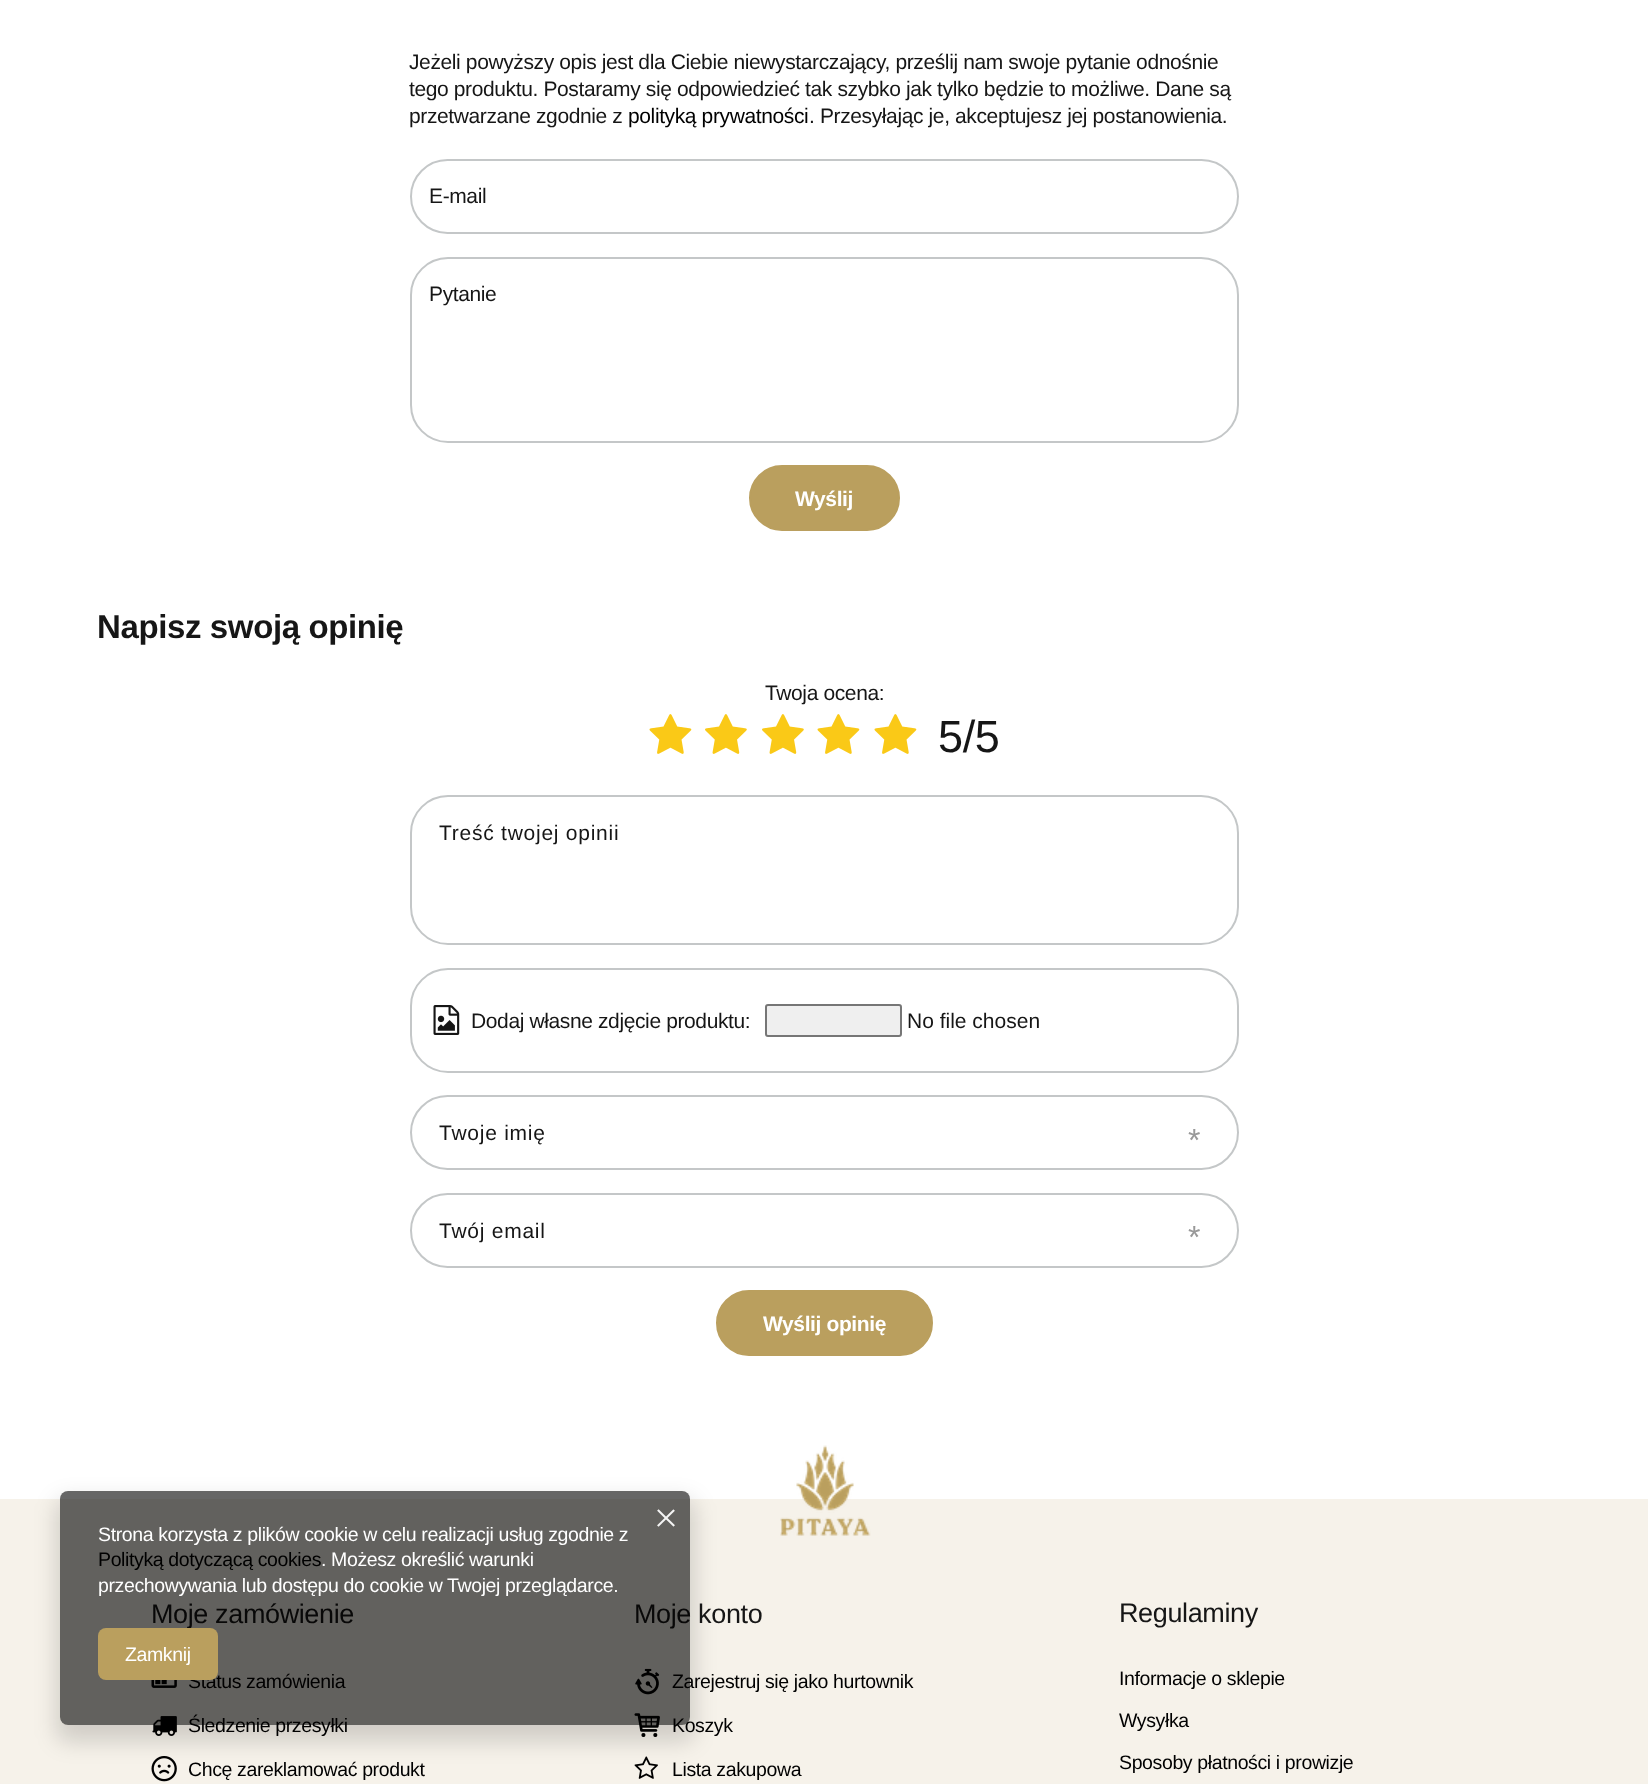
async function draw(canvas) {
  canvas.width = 1648;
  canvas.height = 1784;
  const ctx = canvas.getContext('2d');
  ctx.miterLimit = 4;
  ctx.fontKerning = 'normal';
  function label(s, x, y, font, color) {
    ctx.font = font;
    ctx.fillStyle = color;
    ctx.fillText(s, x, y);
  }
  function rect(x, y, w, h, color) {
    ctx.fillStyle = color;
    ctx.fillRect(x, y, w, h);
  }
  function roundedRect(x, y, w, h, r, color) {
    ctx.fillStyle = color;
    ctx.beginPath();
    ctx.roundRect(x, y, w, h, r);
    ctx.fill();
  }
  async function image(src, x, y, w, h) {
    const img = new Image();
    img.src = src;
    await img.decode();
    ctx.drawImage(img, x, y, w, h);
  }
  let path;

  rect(0, 0, 1648, 1784, '#fff');
  ctx.letterSpacing = '-0.38px';
  label('Jeżeli powyższy opis jest dla Ciebie niewystarczający, prześlij nam swoje pytanie odnośnie', 409, 69, '21px Liberation Sans', '#161616');
  label('tego produktu. Postaramy się odpowiedzieć tak szybko jak tylko będzie to możliwe. Dane są', 409, 96, '21px Liberation Sans', '#161616');
  label('przetwarzane zgodnie z', 409, 123, '21px Liberation Sans', '#161616');
  label('polityką prywatności', 628, 123, '21px Liberation Sans', '#000');
  label('. Przesyłając je, akceptujesz jej postanowienia.', 809, 123, '21px Liberation Sans', '#161616');
  ctx.beginPath();
  ctx.roundRect(411, 160, 827, 73, 36.5);
  ctx.strokeStyle = '#c4c7c8';
  ctx.lineWidth = 2;
  ctx.stroke();
  label('E-mail', 429, 203, '21px Liberation Sans', '#161616');
  ctx.beginPath();
  ctx.roundRect(411, 258, 827, 184, 37);
  ctx.stroke();
  label('Pytanie', 429, 301, '21px Liberation Sans', '#161616');
  ctx.fillStyle = '#ba9f5e';
  ctx.beginPath();
  ctx.roundRect(750, 466, 149, 64, 32);
  ctx.fill();
  ctx.strokeStyle = '#ba9f5e';
  ctx.stroke();
  label('Wyślij', 795, 506, 'bold 21px Liberation Sans', '#fff');
  label('Napisz swoją opinię', 97, 638, 'bold 33px Liberation Sans', '#161616');
  label('Twoja ocena:', 765, 700, '21px Liberation Sans', '#161616');
  await image('assets/img1.png', 649, 714, 43, 40);
  await image('assets/img2.png', 705, 714, 42, 40);
  await image('assets/img2.png', 762, 714, 42, 40);
  await image('assets/img1.png', 817, 714, 43, 40);
  await image('assets/img1.png', 874, 714, 43, 40);
  label('5/5', 938, 752, '45px Liberation Sans', '#161616');
  ctx.beginPath();
  ctx.roundRect(411, 796, 827, 148, 37);
  ctx.strokeStyle = '#c4c7c8';
  ctx.stroke();
  ctx.letterSpacing = '0.75px';
  label('Treść twojej opinii', 439, 840, '21px Liberation Sans', '#161616');
  ctx.beginPath();
  ctx.roundRect(411, 969, 827, 103, 37);
  ctx.stroke();
  await image('assets/img3.png', 433, 1005, 27, 30);
  ctx.letterSpacing = '-0.38px';
  label('Dodaj własne zdjęcie produktu:', 471, 1028, '21px Liberation Sans', '#161616');
  ctx.fillStyle = '#efefef';
  ctx.beginPath();
  ctx.roundRect(766, 1005, 135, 31, 2);
  ctx.fill();
  ctx.strokeStyle = '#767676';
  ctx.stroke();
  ctx.letterSpacing = '0px';
  label('No file chosen', 907, 1028, '21px Liberation Sans', '#161616');
  ctx.beginPath();
  ctx.roundRect(411, 1096, 827, 73, 36.5);
  ctx.strokeStyle = '#c4c7c8';
  ctx.stroke();
  ctx.letterSpacing = '0.75px';
  label('Twoje imię', 439, 1140, '21px Liberation Sans', '#161616');
  ctx.letterSpacing = '-0.38px';
  label('*', 1188, 1151, '32px Liberation Sans', '#999');
  ctx.beginPath();
  ctx.roundRect(411, 1194, 827, 73, 36.5);
  ctx.stroke();
  ctx.letterSpacing = '0.75px';
  label('Twój email', 439, 1238, '21px Liberation Sans', '#161616');
  ctx.letterSpacing = '-0.38px';
  label('*', 1188, 1248, '32px Liberation Sans', '#999');
  ctx.fillStyle = '#ba9f5e';
  ctx.beginPath();
  ctx.roundRect(717, 1291, 215, 64, 32);
  ctx.fill();
  ctx.strokeStyle = '#ba9f5e';
  ctx.stroke();
  label('Wyślij opinię', 763, 1331, 'bold 21px Liberation Sans', '#fff');
  rect(0, 1499, 1648, 285, '#f6f2ea');
  await image('assets/img6.png', 151, 1680, 26, 8);
  await image('assets/img7.png', 152, 1716, 25, 20);
  await image('assets/img8.png', 151, 1756, 26, 26);
  await image('assets/img9.png', 635, 1668, 25, 27);
  await image('assets/img10.png', 634, 1713, 26, 24);
  await image('assets/img11.png', 634, 1756, 24, 23);
  ctx.save();
  path = new Path2D('M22 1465H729V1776H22ZM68 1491H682C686.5 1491 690 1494.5 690 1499V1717C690 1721.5 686.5 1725 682 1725H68C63.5 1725 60 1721.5 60 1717V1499C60 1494.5 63.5 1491 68 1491Z');
  ctx.clip(path, 'evenodd');
  ctx.fillStyle = '#00000026';
  ctx.filter = 'blur(11px)';
  ctx.beginPath();
  ctx.roundRect(56, 1499, 639, 243, 12);
  ctx.fill();
  ctx.filter = 'none';
  ctx.restore();
  label('Moje zamówienie', 151, 1623, '27px Liberation Sans', '#161616');
  label('Status zamówienia', 188, 1688, '19.5px Liberation Sans', '#000');
  label('Śledzenie przesyłki', 188, 1732, '19.5px Liberation Sans', '#000');
  label('Moje konto', 634, 1623, '27px Liberation Sans', '#161616');
  label('Zarejestruj się jako hurtownik', 672, 1688, '19.5px Liberation Sans', '#000');
  label('Koszyk', 672, 1732, '19.5px Liberation Sans', '#000');
  roundedRect(60, 1491, 630, 234, 8, '#00000099');
  await image('assets/img4.png', 657, 1509, 18, 18);
  label('Strona korzysta z plików cookie w celu realizacji usług zgodnie z', 98, 1541, '19.5px Liberation Sans', '#fff');
  label('Polityką dotyczącą cookies', 98, 1566, '19.5px Liberation Sans', '#000');
  label('. Możesz określić warunki', 321, 1566, '19.5px Liberation Sans', '#fff');
  label('przechowywania lub dostępu do cookie w Twojej przeglądarce.', 98, 1592, '19.5px Liberation Sans', '#fff');
  roundedRect(98, 1628, 120, 52, 8, '#ba9f5e');
  label('Zamknij', 125, 1661, '19.5px Liberation Sans', '#fff');
  await image('assets/img5.png', 780, 1445, 91, 91);
  label('Chcę zareklamować produkt', 188, 1776, '19.5px Liberation Sans', '#000');
  label('Lista zakupowa', 672, 1776, '19.5px Liberation Sans', '#000');
  label('Regulaminy', 1119, 1622, '27px Liberation Sans', '#161616');
  label('Informacje o sklepie', 1119, 1685, '19.5px Liberation Sans', '#000');
  label('Wysyłka', 1119, 1727, '19.5px Liberation Sans', '#000');
  label('Sposoby płatności i prowizje', 1119, 1769, '19.5px Liberation Sans', '#000');
}

draw(document.querySelector('canvas'));
